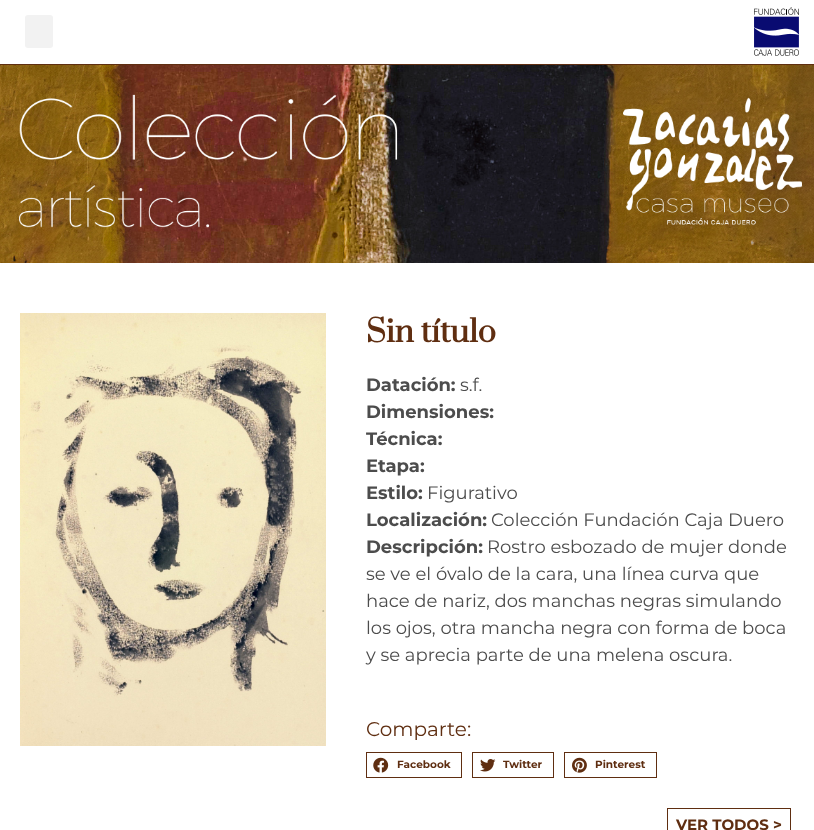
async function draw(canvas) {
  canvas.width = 814;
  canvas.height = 830;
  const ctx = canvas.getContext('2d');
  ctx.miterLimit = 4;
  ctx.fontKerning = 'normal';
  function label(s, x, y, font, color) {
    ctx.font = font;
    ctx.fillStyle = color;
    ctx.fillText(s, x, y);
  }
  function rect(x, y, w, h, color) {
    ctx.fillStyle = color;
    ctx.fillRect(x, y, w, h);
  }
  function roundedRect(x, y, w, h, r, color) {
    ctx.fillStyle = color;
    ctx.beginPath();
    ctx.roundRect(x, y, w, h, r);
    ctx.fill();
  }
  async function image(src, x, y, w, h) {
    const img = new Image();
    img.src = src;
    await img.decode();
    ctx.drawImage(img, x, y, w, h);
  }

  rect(0, 0, 814, 830, '#fff');
  rect(0, 64, 814, 1, '#5f2e11');
  roundedRect(25, 15, 28, 33, 3, '#f2f2f2');
  await image('assets/img1.png', 754, 7, 45, 49);
  await image('assets/img2.png', 0, 65, 814, 198);
  await image('assets/img3.png', 19, 94, 783, 134);
  await image('assets/img4.png', 20, 313, 306, 433);
  label('Sin título', 366, 342, 'bold 30px Prata', '#5f2e11');
  label('Datación:', 366, 391, 'bold 18px Montserrat', '#4c4c4c');
  label('s.f.', 460, 391, '18px Montserrat', '#4c4c4c');
  label('Dimensiones:', 366, 418, 'bold 18px Montserrat', '#4c4c4c');
  label('Técnica:', 366, 445, 'bold 18px Montserrat', '#4c4c4c');
  label('Etapa:', 366, 472, 'bold 18px Montserrat', '#4c4c4c');
  label('Estilo:', 366, 499, 'bold 18px Montserrat', '#4c4c4c');
  label('Figurativo', 427, 499, '18px Montserrat', '#4c4c4c');
  label('Localización:', 366, 526, 'bold 18px Montserrat', '#4c4c4c');
  label('Colección Fundación Caja Duero', 491, 526, '18px Montserrat', '#4c4c4c');
  label('Descripción:', 366, 553, 'bold 18px Montserrat', '#4c4c4c');
  label('Rostro esbozado de mujer donde', 487, 553, '18px Montserrat', '#4c4c4c');
  label('se ve el óvalo de la cara, una línea curva que', 366, 580, '18px Montserrat', '#4c4c4c');
  label('hace de nariz, dos manchas negras simulando', 366, 607, '18px Montserrat', '#4c4c4c');
  label('los ojos, otra mancha negra con forma de boca', 366, 634, '18px Montserrat', '#4c4c4c');
  label('y se aprecia parte de una melena oscura.', 366, 661, '18px Montserrat', '#4c4c4c');
  label('Comparte:', 366, 736, '20px Montserrat', '#5f2e11');
  ctx.strokeStyle = '#5f2e11';
  ctx.strokeRect(366.5, 752.5, 95, 25);
  await image('assets/img5.png', 373, 757, 16, 16);
  label('Facebook', 397, 768, 'bold 10.5px Montserrat', '#5f2e11');
  ctx.strokeRect(472.5, 752.5, 81, 25);
  await image('assets/img6.png', 480, 759, 16, 13);
  label('Twitter', 503, 768, 'bold 10.5px Montserrat', '#5f2e11');
  ctx.strokeRect(564.5, 752.5, 92, 25);
  await image('assets/img7.png', 572, 757, 15, 16);
  label('Pinterest', 595, 768, 'bold 10.5px Montserrat', '#5f2e11');
  ctx.strokeRect(667.5, 808.5, 123, 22);
  label('VER TODOS >', 676, 830, 'bold 15px Montserrat', '#5f2e11');
}

draw(document.querySelector('canvas'));
